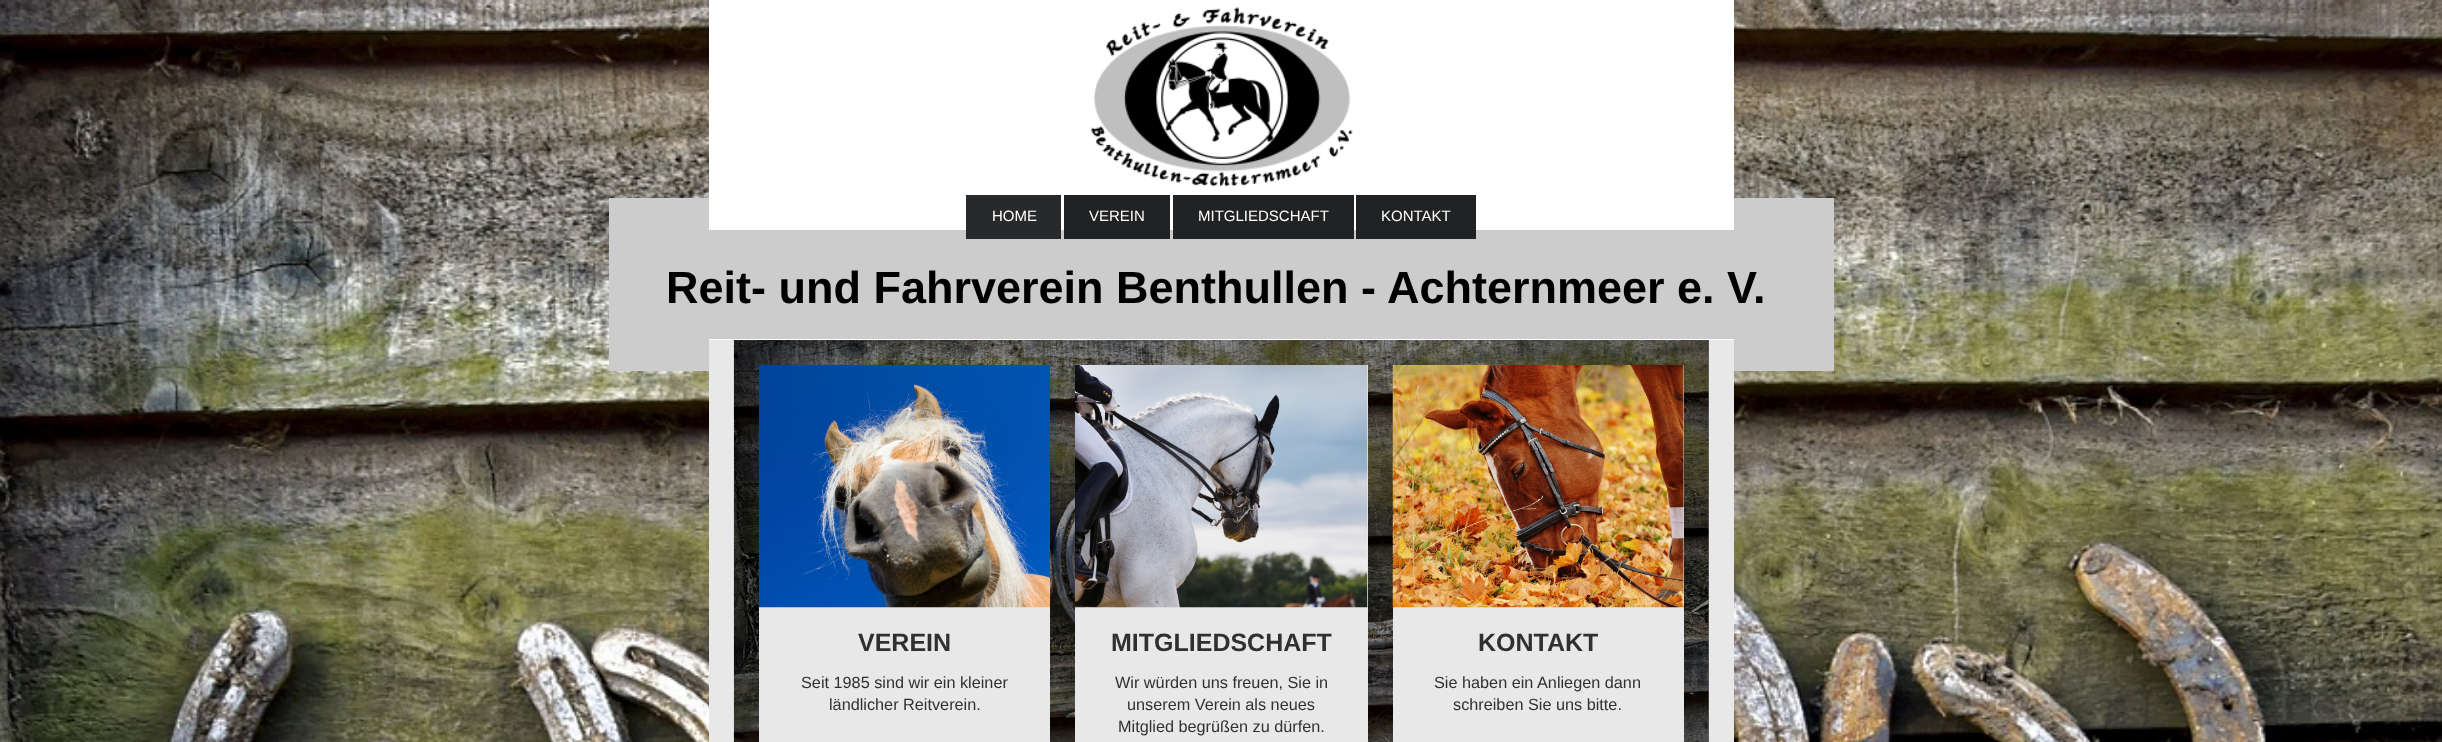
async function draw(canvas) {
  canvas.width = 2442;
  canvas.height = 742;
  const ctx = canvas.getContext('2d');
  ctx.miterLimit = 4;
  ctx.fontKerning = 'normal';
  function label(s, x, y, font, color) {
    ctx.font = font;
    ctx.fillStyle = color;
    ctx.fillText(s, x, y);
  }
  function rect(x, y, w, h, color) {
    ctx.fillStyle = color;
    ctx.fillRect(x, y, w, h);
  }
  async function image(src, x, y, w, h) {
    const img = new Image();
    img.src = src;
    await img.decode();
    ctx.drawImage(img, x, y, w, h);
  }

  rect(0, 0, 2442, 742, '#fff');
  await image('assets/img1.png', 0, 0, 2442, 742);
  rect(609, 198, 1225, 173, '#ccc');
  rect(709, 0, 1025, 230, '#fff');
  await image('assets/img2.png', 1091, 7, 262, 180);
  rect(966, 195, 95, 44, '#28292b');
  label('HOME', 992, 221, '15px Liberation Sans', '#fff');
  rect(1064, 195, 106, 44, '#212224');
  label('VEREIN', 1089, 221, '15px Liberation Sans', '#fff');
  rect(1173, 195, 181, 44, '#212224');
  label('MITGLIEDSCHAFT', 1198, 221, '15px Liberation Sans', '#fff');
  rect(1356, 195, 120, 44, '#212224');
  label('KONTAKT', 1381, 221, '15px Liberation Sans', '#fff');
  label('Reit- und Fahrverein Benthullen - Achternmeer e. V.', 666, 303, 'bold 45px Liberation Sans', '#000');
  rect(709, 339, 1025, 1, '#fff');
  rect(709, 340, 1025, 402, '#e8e8e8');
  await image('assets/img3.png', 733, 340, 976, 402);
  rect(734, 340, 975, 402, '#00000073');
  rect(759, 607, 291, 135, '#e8e8e8');
  await image('assets/img4.png', 758, 365, 292, 243);
  label('VEREIN', 858, 651, 'bold 25px Liberation Sans', '#303030');
  label('Seit 1985 sind wir ein kleiner', 801, 688, '16.25px Liberation Sans', '#303030');
  label('ländlicher Reitverein.', 829, 710, '16.25px Liberation Sans', '#303030');
  rect(1075, 365, 293, 377, '#e8e8e8');
  await image('assets/img5.png', 1075, 365, 293, 243);
  label('MITGLIEDSCHAFT', 1111, 651, 'bold 25px Liberation Sans', '#303030');
  label('Wir würden uns freuen, Sie in', 1115, 688, '16.25px Liberation Sans', '#303030');
  label('unserem Verein als neues', 1127, 710, '16.25px Liberation Sans', '#303030');
  label('Mitglied begrüßen zu dürfen.', 1118, 732, '16.25px Liberation Sans', '#303030');
  rect(1393, 365, 291, 377, '#e8e8e8');
  await image('assets/img6.png', 1392, 365, 292, 243);
  label('KONTAKT', 1478, 651, 'bold 25px Liberation Sans', '#303030');
  label('Sie haben ein Anliegen dann', 1434, 688, '16.25px Liberation Sans', '#303030');
  label('schreiben Sie uns bitte.', 1453, 710, '16.25px Liberation Sans', '#303030');
}

draw(document.querySelector('canvas'));
